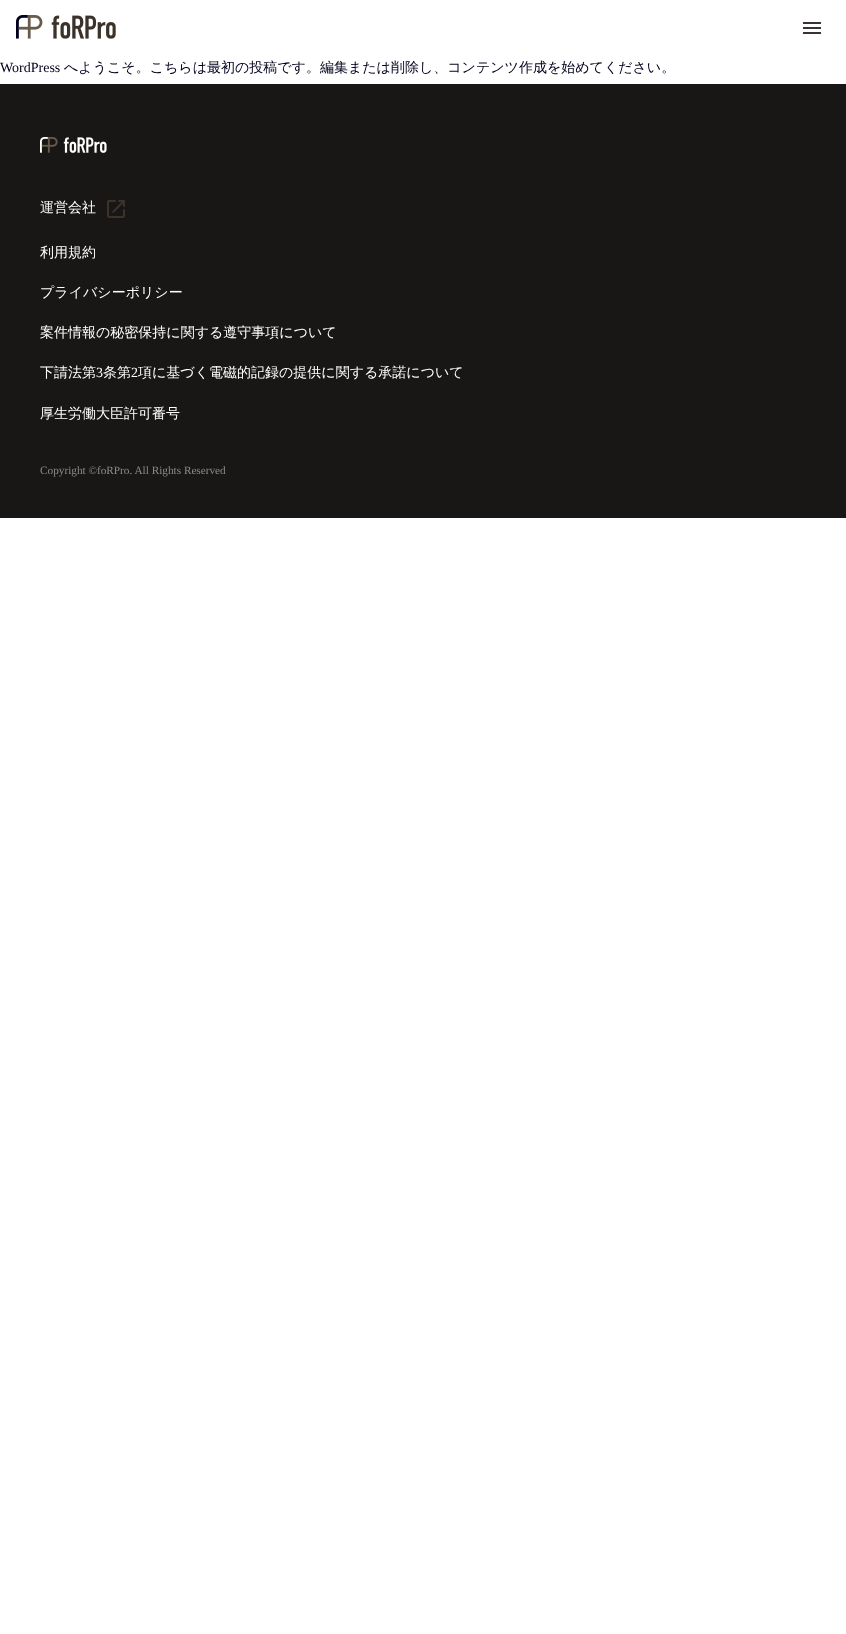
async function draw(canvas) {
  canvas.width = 846;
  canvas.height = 1634;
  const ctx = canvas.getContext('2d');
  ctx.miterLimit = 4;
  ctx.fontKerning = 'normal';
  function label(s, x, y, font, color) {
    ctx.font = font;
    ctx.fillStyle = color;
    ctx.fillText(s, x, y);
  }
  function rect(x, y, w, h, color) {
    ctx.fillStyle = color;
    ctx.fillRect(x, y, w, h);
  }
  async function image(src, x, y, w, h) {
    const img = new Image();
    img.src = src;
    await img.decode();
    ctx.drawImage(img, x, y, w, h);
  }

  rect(0, 0, 846, 1634, '#fff');
  await image('assets/img1.png', 16, 15, 100, 24);
  rect(803, 22, 18, 2, '#3b3239');
  rect(803, 27, 18, 2, '#3b3239');
  rect(803, 32, 18, 2, '#3b3239');
  label('WordPress', 0, 72, '14px Liberation Serif', '#00011d');
  label('へようこそ。こちらは最初の投稿です。編集または削除し、コンテンツ作成を始めてください。', 64, 72, '500 14px WenQuanYi Zen Hei', '#00011d');
  rect(0, 84, 846, 434, '#191715');
  await image('assets/img2.png', 40, 137, 67, 16);
  label('運営会社', 40, 212, '500 14px WenQuanYi Zen Hei', '#fff');
  await image('assets/img3.png', 107, 200, 18, 18);
  label('利用規約', 40, 257, '500 14px WenQuanYi Zen Hei', '#fff');
  label('プライバシーポリシー', 40, 297, '500 14px WenQuanYi Zen Hei', '#fff');
  label('案件情報の秘密保持に関する遵守事項について', 40, 337, '500 14px WenQuanYi Zen Hei', '#fff');
  label('下請法第', 40, 377, '500 14px WenQuanYi Zen Hei', '#fff');
  label('3', 96, 377, '14px Liberation Serif', '#fff');
  label('条第', 103, 377, '500 14px WenQuanYi Zen Hei', '#fff');
  label('2', 131, 377, '14px Liberation Serif', '#fff');
  label('項に基づく電磁的記録の提供に関する承諾について', 138, 377, '500 14px WenQuanYi Zen Hei', '#fff');
  label('厚生労働大臣許可番号', 40, 418, '500 14px WenQuanYi Zen Hei', '#fff');
  label('Copyright ©foRPro. All Rights Reserved', 40, 474, '11.25px Liberation Serif', '#8c8b8a');
}

draw(document.querySelector('canvas'));
